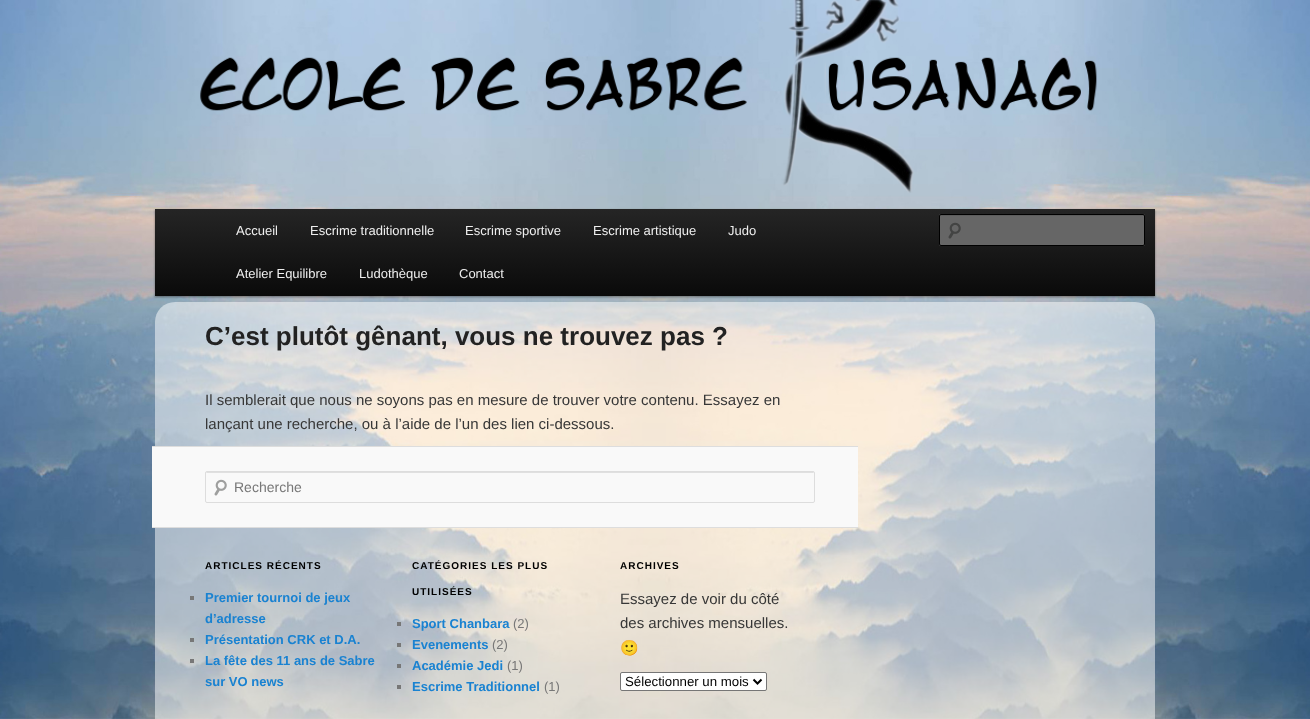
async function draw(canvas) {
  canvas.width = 1310;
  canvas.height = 719;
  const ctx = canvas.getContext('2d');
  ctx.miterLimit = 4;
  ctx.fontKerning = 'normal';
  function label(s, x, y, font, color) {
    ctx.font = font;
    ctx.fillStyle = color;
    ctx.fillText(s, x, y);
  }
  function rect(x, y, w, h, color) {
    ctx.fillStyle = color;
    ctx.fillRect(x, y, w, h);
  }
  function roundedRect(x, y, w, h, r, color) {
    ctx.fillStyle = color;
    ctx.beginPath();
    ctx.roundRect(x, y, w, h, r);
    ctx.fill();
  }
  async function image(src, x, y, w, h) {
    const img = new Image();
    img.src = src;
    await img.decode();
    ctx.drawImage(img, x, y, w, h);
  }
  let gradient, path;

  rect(0, 0, 1310, 719, '#fff');
  await image('assets/img1.png', 0, 0, 1310, 719);
  await image('assets/img2.png', 200, 0, 897, 193);
  ctx.fillStyle = '#00000066';
  ctx.filter = 'blur(1px)';
  ctx.beginPath();
  ctx.rect(155, 210, 1000, 87);
  ctx.fill();
  ctx.filter = 'none';
  gradient = ctx.createLinearGradient(655, 209, 655, 296);
  gradient.addColorStop(0, '#252525');
  gradient.addColorStop(1, '#0a0a0a');
  ctx.fillStyle = gradient;
  ctx.fillRect(155, 209, 1000, 87);
  label('Accueil', 236, 235, '13px Liberation Sans', '#eee');
  label('Escrime traditionnelle', 310, 235, '13px Liberation Sans', '#eee');
  label('Escrime sportive', 465, 235, '13px Liberation Sans', '#eee');
  label('Escrime artistique', 593, 235, '13px Liberation Sans', '#eee');
  label('Judo', 728, 235, '13px Liberation Sans', '#eee');
  label('Atelier Equilibre', 236, 278, '13px Liberation Sans', '#eee');
  label('Ludothèque', 359, 278, '13px Liberation Sans', '#eee');
  label('Contact', 459, 278, '13px Liberation Sans', '#eee');
  roundedRect(939, 214, 206, 32, 2, '#666');
  await image('assets/img3.png', 948, 222, 13, 17);
  ctx.fillStyle = '#5c5c5c';
  path = new Path2D('M941 216H1144V217V215H1143H941C940 215 940 216 940 217C940 216 940 216 941 216Z');
  ctx.fill(path);
  ctx.beginPath();
  ctx.roundRect(939.5, 214.5, 205, 31, 1.5);
  ctx.strokeStyle = '#000';
  ctx.stroke();
  roundedRect(155, 302, 1000, 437, 20, '#ffffff80');
  label('C’est plutôt gênant, vous ne trouvez pas ?', 205, 345, 'bold 26px Liberation Sans', '#222');
  label('Il semblerait que nous ne soyons pas en mesure de trouver votre contenu. Essayez en', 205, 405, '15px Liberation Sans', '#373737');
  label('lançant une recherche, ou à l’aide de l’un des lien ci-dessous.', 205, 429, '15px Liberation Sans', '#373737');
  rect(152, 447, 706, 80, '#f9f9f9');
  rect(152, 446, 706, 1, '#ddd');
  rect(152, 527, 706, 1, '#ddd');
  await image('assets/img4.png', 214, 479, 13, 17);
  ctx.fillStyle = '#e0e0e0';
  path = new Path2D('M207 472L206 473H814L813 472Z');
  ctx.fill(path);
  ctx.beginPath();
  ctx.roundRect(205.5, 471.5, 609, 31, 1.5);
  ctx.strokeStyle = '#ddd';
  ctx.stroke();
  label('Recherche', 234, 492, '14px Liberation Sans', '#777');
  ctx.letterSpacing = '1px';
  label('ARTICLES RÉCENTS', 205, 569, 'bold 10px Liberation Sans', '#000');
  rect(190, 596, 4, 4, '#777');
  ctx.letterSpacing = '0px';
  label('Premier tournoi de jeux', 205, 602, 'bold 13px Liberation Sans', '#1982d1');
  label('d’adresse', 205, 623, 'bold 13px Liberation Sans', '#1982d1');
  rect(190, 638, 4, 4, '#777');
  label('Présentation CRK et D.A.', 205, 644, 'bold 13px Liberation Sans', '#1982d1');
  rect(190, 659, 4, 4, '#777');
  label('La fête des 11 ans de Sabre', 205, 665, 'bold 13px Liberation Sans', '#1982d1');
  label('sur VO news', 205, 686, 'bold 13px Liberation Sans', '#1982d1');
  ctx.letterSpacing = '1px';
  label('CATÉGORIES LES PLUS', 412, 569, 'bold 10px Liberation Sans', '#000');
  label('UTILISÉES', 412, 595, 'bold 10px Liberation Sans', '#000');
  rect(397, 622, 4, 4, '#777');
  ctx.letterSpacing = '0px';
  label('Sport Chanbara', 412, 628, 'bold 13px Liberation Sans', '#1982d1');
  label('(2)', 513, 628, '13px Liberation Sans', '#777');
  rect(397, 643, 4, 4, '#777');
  label('Evenements', 412, 649, 'bold 13px Liberation Sans', '#1982d1');
  label('(2)', 492, 649, '13px Liberation Sans', '#777');
  rect(397, 664, 4, 4, '#777');
  label('Académie Jedi', 412, 670, 'bold 13px Liberation Sans', '#1982d1');
  label('(1)', 507, 670, '13px Liberation Sans', '#777');
  rect(397, 685, 4, 4, '#777');
  label('Escrime Traditionnel', 412, 691, 'bold 13px Liberation Sans', '#1982d1');
  label('(1)', 544, 691, '13px Liberation Sans', '#777');
  ctx.letterSpacing = '1px';
  label('ARCHIVES', 620, 569, 'bold 10px Liberation Sans', '#000');
  ctx.letterSpacing = '0px';
  label('Essayez de voir du côté', 620, 604, '15px Liberation Sans', '#373737');
  label('des archives mensuelles.', 620, 628, '15px Liberation Sans', '#373737');
  label('🙂', 620, 653, '15px Noto Color Emoji', '#373737');
  ctx.fillStyle = '#fff';
  ctx.beginPath();
  ctx.roundRect(620.5, 672.5, 146, 18, 1.5);
  ctx.fill();
  ctx.strokeStyle = '#767676';
  ctx.stroke();
  path = new Path2D('M753.5 679.5L757.5 683.5L761.5 679.5');
  ctx.strokeStyle = '#000';
  ctx.lineWidth = 2;
  ctx.stroke(path);
  label('Sélectionner un mois', 625, 686, '13.25px Liberation Sans', '#000');
}

draw(document.querySelector('canvas'));
